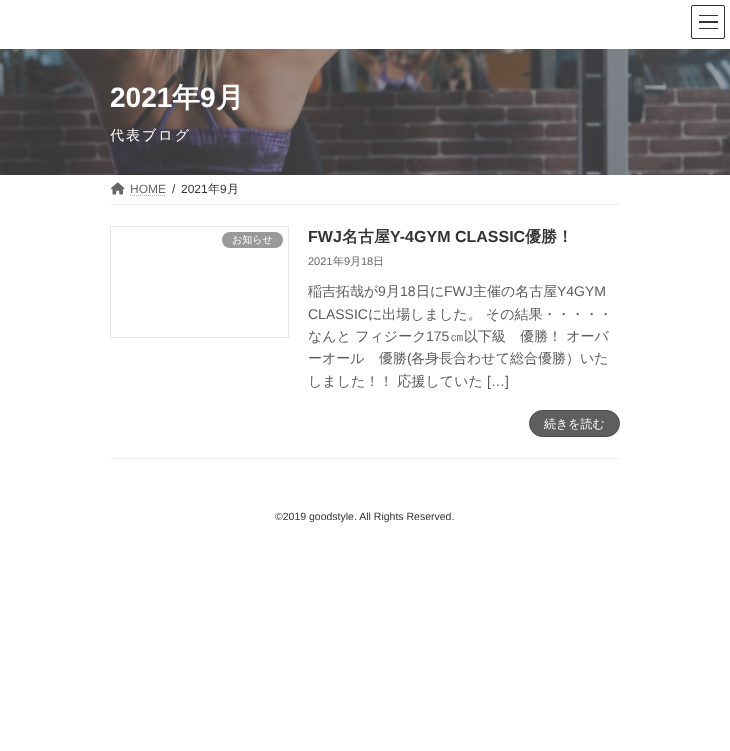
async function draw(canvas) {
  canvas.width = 730;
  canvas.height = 751;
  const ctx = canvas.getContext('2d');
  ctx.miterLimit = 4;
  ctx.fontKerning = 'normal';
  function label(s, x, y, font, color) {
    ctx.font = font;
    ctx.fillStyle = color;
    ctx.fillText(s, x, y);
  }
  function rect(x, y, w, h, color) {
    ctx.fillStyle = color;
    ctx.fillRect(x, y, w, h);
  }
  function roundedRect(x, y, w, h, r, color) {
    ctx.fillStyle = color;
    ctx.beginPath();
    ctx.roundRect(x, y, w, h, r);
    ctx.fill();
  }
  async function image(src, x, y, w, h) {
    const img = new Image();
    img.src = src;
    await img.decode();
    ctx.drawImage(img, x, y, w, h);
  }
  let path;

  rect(0, 0, 730, 751, '#fff');
  rect(699, 15, 19, 1, '#333');
  rect(699, 21, 19, 2, '#333');
  rect(699, 28, 19, 1, '#333');
  ctx.beginPath();
  ctx.roundRect(691.5, 5.5, 33, 33, 1.5);
  ctx.strokeStyle = '#333';
  ctx.stroke();
  await image('assets/img1.png', 0, 49, 730, 126);
  label('2021', 110, 107, 'bold 28px Liberation Sans', '#fff');
  label('年', 172, 107, 'bold 28px WenQuanYi Zen Hei', '#fff');
  label('9', 200, 107, 'bold 28px Liberation Sans', '#fff');
  label('月', 216, 107, 'bold 28px WenQuanYi Zen Hei', '#fff');
  ctx.letterSpacing = '2px';
  label('代表ブログ', 110, 140, '500 14px WenQuanYi Zen Hei', '#fff');
  await image('assets/img2.png', 111, 182, 14, 13);
  ctx.letterSpacing = '0px';
  label('HOME', 130, 193, '12px Liberation Sans', '#666');
  path = new Path2D('M130 195.5H166');
  ctx.strokeStyle = '#b3b3b3';
  ctx.setLineDash([1, 1]);
  ctx.stroke(path);
  label('/', 172, 193, '12px Liberation Sans', '#333');
  label('2021', 181, 193, '12px Liberation Sans', '#333');
  label('年', 208, 193, '500 12px WenQuanYi Zen Hei', '#333');
  label('9', 220, 193, '12px Liberation Sans', '#333');
  label('月', 227, 193, '500 12px WenQuanYi Zen Hei', '#333');
  rect(110, 204, 510, 1, '#f0f0f0');
  rect(110, 458, 510, 1, '#f0f0f0');
  ctx.strokeStyle = '#e5e5e5';
  ctx.setLineDash([]);
  ctx.strokeRect(110.5, 226.5, 178, 111);
  roundedRect(222, 232, 61, 16, 8, '#999');
  label('お知らせ', 232, 243, '500 10px WenQuanYi Zen Hei', '#fff');
  label('FWJ', 308, 242, 'bold 16px Liberation Sans', '#333');
  label('名古屋', 342, 242, 'bold 16px WenQuanYi Zen Hei', '#333');
  label('Y-4GYM CLASSIC', 390, 242, 'bold 16px Liberation Sans', '#333');
  label('優勝！', 525, 242, 'bold 16px WenQuanYi Zen Hei', '#333');
  label('2021', 308, 265, '11px Liberation Sans', '#666');
  label('年', 333, 265, '500 11px WenQuanYi Zen Hei', '#666');
  label('9', 344, 265, '11px Liberation Sans', '#666');
  label('月', 350, 265, '500 11px WenQuanYi Zen Hei', '#666');
  label('18', 361, 265, '11px Liberation Sans', '#666');
  label('日', 373, 265, '500 11px WenQuanYi Zen Hei', '#666');
  label('稲吉拓哉が', 308, 296, '500 14px WenQuanYi Zen Hei', '#5c5c5c');
  label('9', 378, 296, '14px Liberation Sans', '#5c5c5c');
  label('月', 386, 296, '500 14px WenQuanYi Zen Hei', '#5c5c5c');
  label('18', 400, 296, '14px Liberation Sans', '#5c5c5c');
  label('日に', 416, 296, '500 14px WenQuanYi Zen Hei', '#5c5c5c');
  label('FWJ', 444, 296, '14px Liberation Sans', '#5c5c5c');
  label('主催の名古屋', 473, 296, '500 14px WenQuanYi Zen Hei', '#5c5c5c');
  label('Y4GYM', 557, 296, '14px Liberation Sans', '#5c5c5c');
  label('CLASSIC', 308, 319, '14px Liberation Sans', '#5c5c5c');
  label('に出場しました。 その結果・・・・・', 368, 319, '500 14px WenQuanYi Zen Hei', '#5c5c5c');
  label('なんと フィジーク', 308, 341, '500 14px WenQuanYi Zen Hei', '#5c5c5c');
  label('175', 426, 341, '14px Liberation Sans', '#5c5c5c');
  label('㎝以下級　優勝！ オーバ', 450, 341, '500 14px WenQuanYi Zen Hei', '#5c5c5c');
  label('ーオール　優勝', 308, 363, '500 14px WenQuanYi Zen Hei', '#5c5c5c');
  label('(', 407, 363, '14px Liberation Sans', '#5c5c5c');
  label('各身長合わせて総合優勝）いた', 411, 363, '500 14px WenQuanYi Zen Hei', '#5c5c5c');
  label('しました！！ 応援していた', 308, 386, '500 14px WenQuanYi Zen Hei', '#5c5c5c');
  label('[…]', 487, 386, '14px Liberation Sans', '#5c5c5c');
  ctx.fillStyle = '#5e5e5e';
  ctx.beginPath();
  ctx.roundRect(529.5, 410.5, 90, 26, 13);
  ctx.fill();
  ctx.strokeStyle = '#4b4b4b';
  ctx.stroke();
  label('続きを読む', 544, 428, '500 12px WenQuanYi Zen Hei', '#fff');
  label('©2019 goodstyle. All Rights Reserved.', 275, 520, '10.5px Liberation Sans', '#333');
}

draw(document.querySelector('canvas'));
